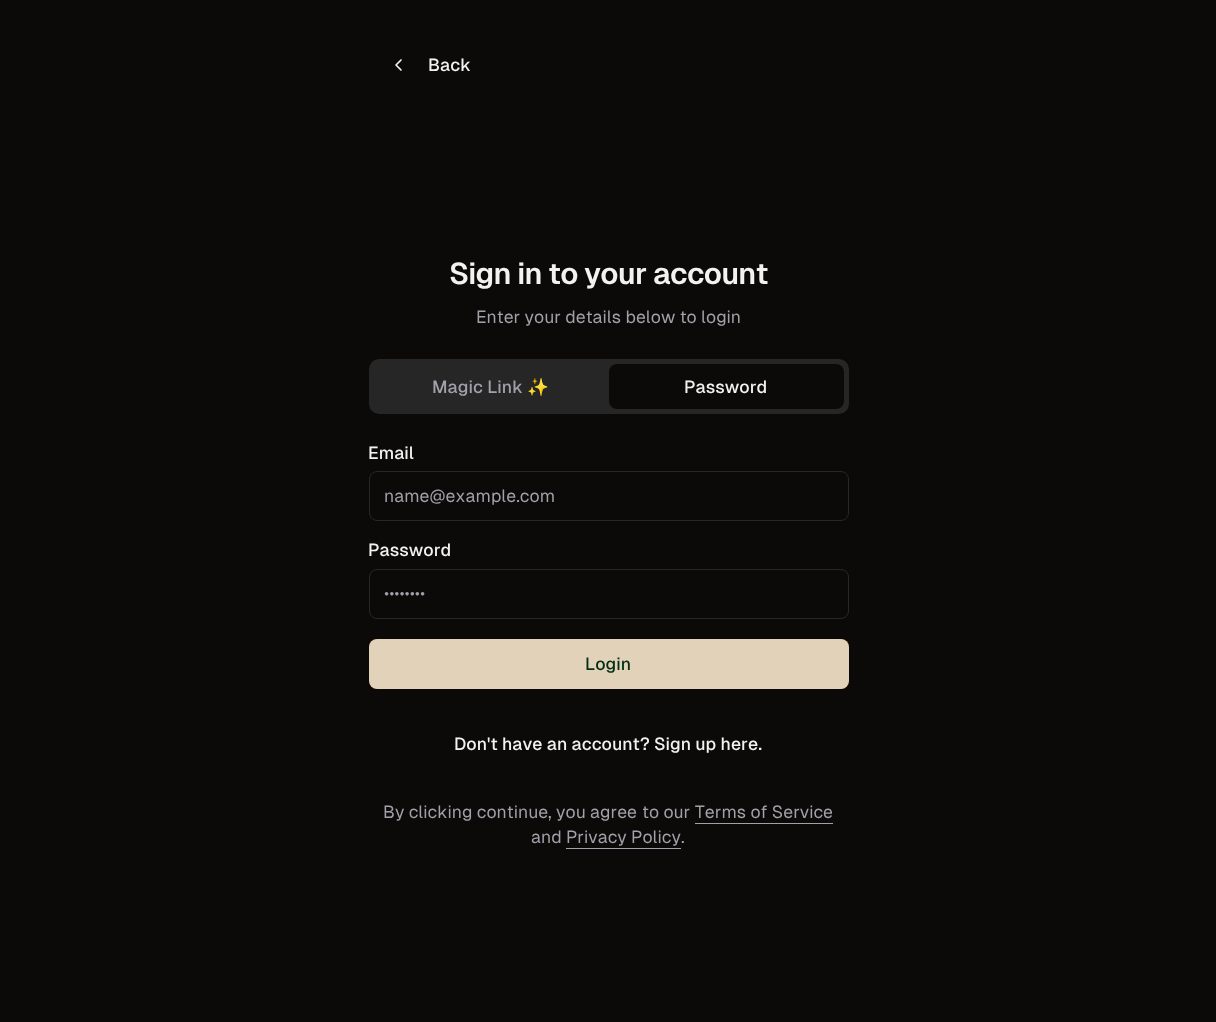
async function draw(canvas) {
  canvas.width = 1216;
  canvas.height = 1022;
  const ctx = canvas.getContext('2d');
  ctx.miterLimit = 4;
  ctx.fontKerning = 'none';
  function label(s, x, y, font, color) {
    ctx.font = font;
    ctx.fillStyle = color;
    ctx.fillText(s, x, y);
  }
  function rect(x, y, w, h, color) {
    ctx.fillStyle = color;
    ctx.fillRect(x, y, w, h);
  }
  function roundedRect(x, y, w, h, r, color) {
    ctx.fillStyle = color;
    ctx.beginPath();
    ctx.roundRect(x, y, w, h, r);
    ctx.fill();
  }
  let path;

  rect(0, 0, 1216, 1022, '#0c0a09');
  path = new Path2D('M401 70L396 65L401 60');
  ctx.strokeStyle = '#f2f2f2';
  ctx.lineWidth = 1.7;
  ctx.lineCap = 'round';
  ctx.lineJoin = 'round';
  ctx.stroke(path);
  label('Back', 428, 71, '500 17.5px Geist', '#f2f2f2');
  ctx.letterSpacing = '-0.75px';
  label('Sign in to your account', 449, 284, '600 30px Geist', '#f2f2f2');
  ctx.letterSpacing = '0px';
  label('Enter your details below to login', 476, 323, '17.5px Geist', '#a1a1aa');
  roundedRect(369, 359, 480, 55, 10, '#262626');
  label('Magic Link', 432, 393, '500 17.5px Geist', '#a1a1aa');
  label('✨', 527, 393, '17.5px Noto Color Emoji', '#a1a1aa');
  roundedRect(609, 364, 235, 45, 8, '#0c0a09');
  label('Password', 684, 393, '500 17.5px Geist', '#f2f2f2');
  label('Email', 368, 459, '500 17.5px Geist', '#f2f2f2');
  ctx.beginPath();
  ctx.roundRect(369.5, 471.5, 479, 49, 7.5);
  ctx.strokeStyle = '#27272a';
  ctx.lineWidth = 1;
  ctx.lineJoin = 'miter';
  ctx.stroke();
  label('name@example.com', 384, 502, '17.5px Geist', '#a1a1aa');
  label('Password', 368, 556, '500 17.5px Geist', '#f2f2f2');
  ctx.beginPath();
  ctx.roundRect(369.5, 569.5, 479, 49, 7.5);
  ctx.stroke();
  label('••••••••', 384, 599, '17.5px Geist', '#a1a1aa');
  roundedRect(369, 639, 480, 50, 8, '#e2d2ba');
  label('Login', 585, 670, '500 17.5px Geist', '#052e16');
  label('Don\'t have an account? Sign up here.', 454, 750, '500 17.5px Geist', '#f2f2f2');
  label('By clicking continue, you agree', 383, 818, '17.5px Geist', '#a1a1aa');
  label('to our Terms of Service', 642, 818, '17.5px Geist', '#a1a1aa');
  rect(695, 823, 138, 1, '#a1a1aa');
  label('and Privacy Policy.', 531, 843, '17.5px Geist', '#a1a1aa');
  rect(566, 848, 115, 1, '#a1a1aa');
}

draw(document.querySelector('canvas'));
